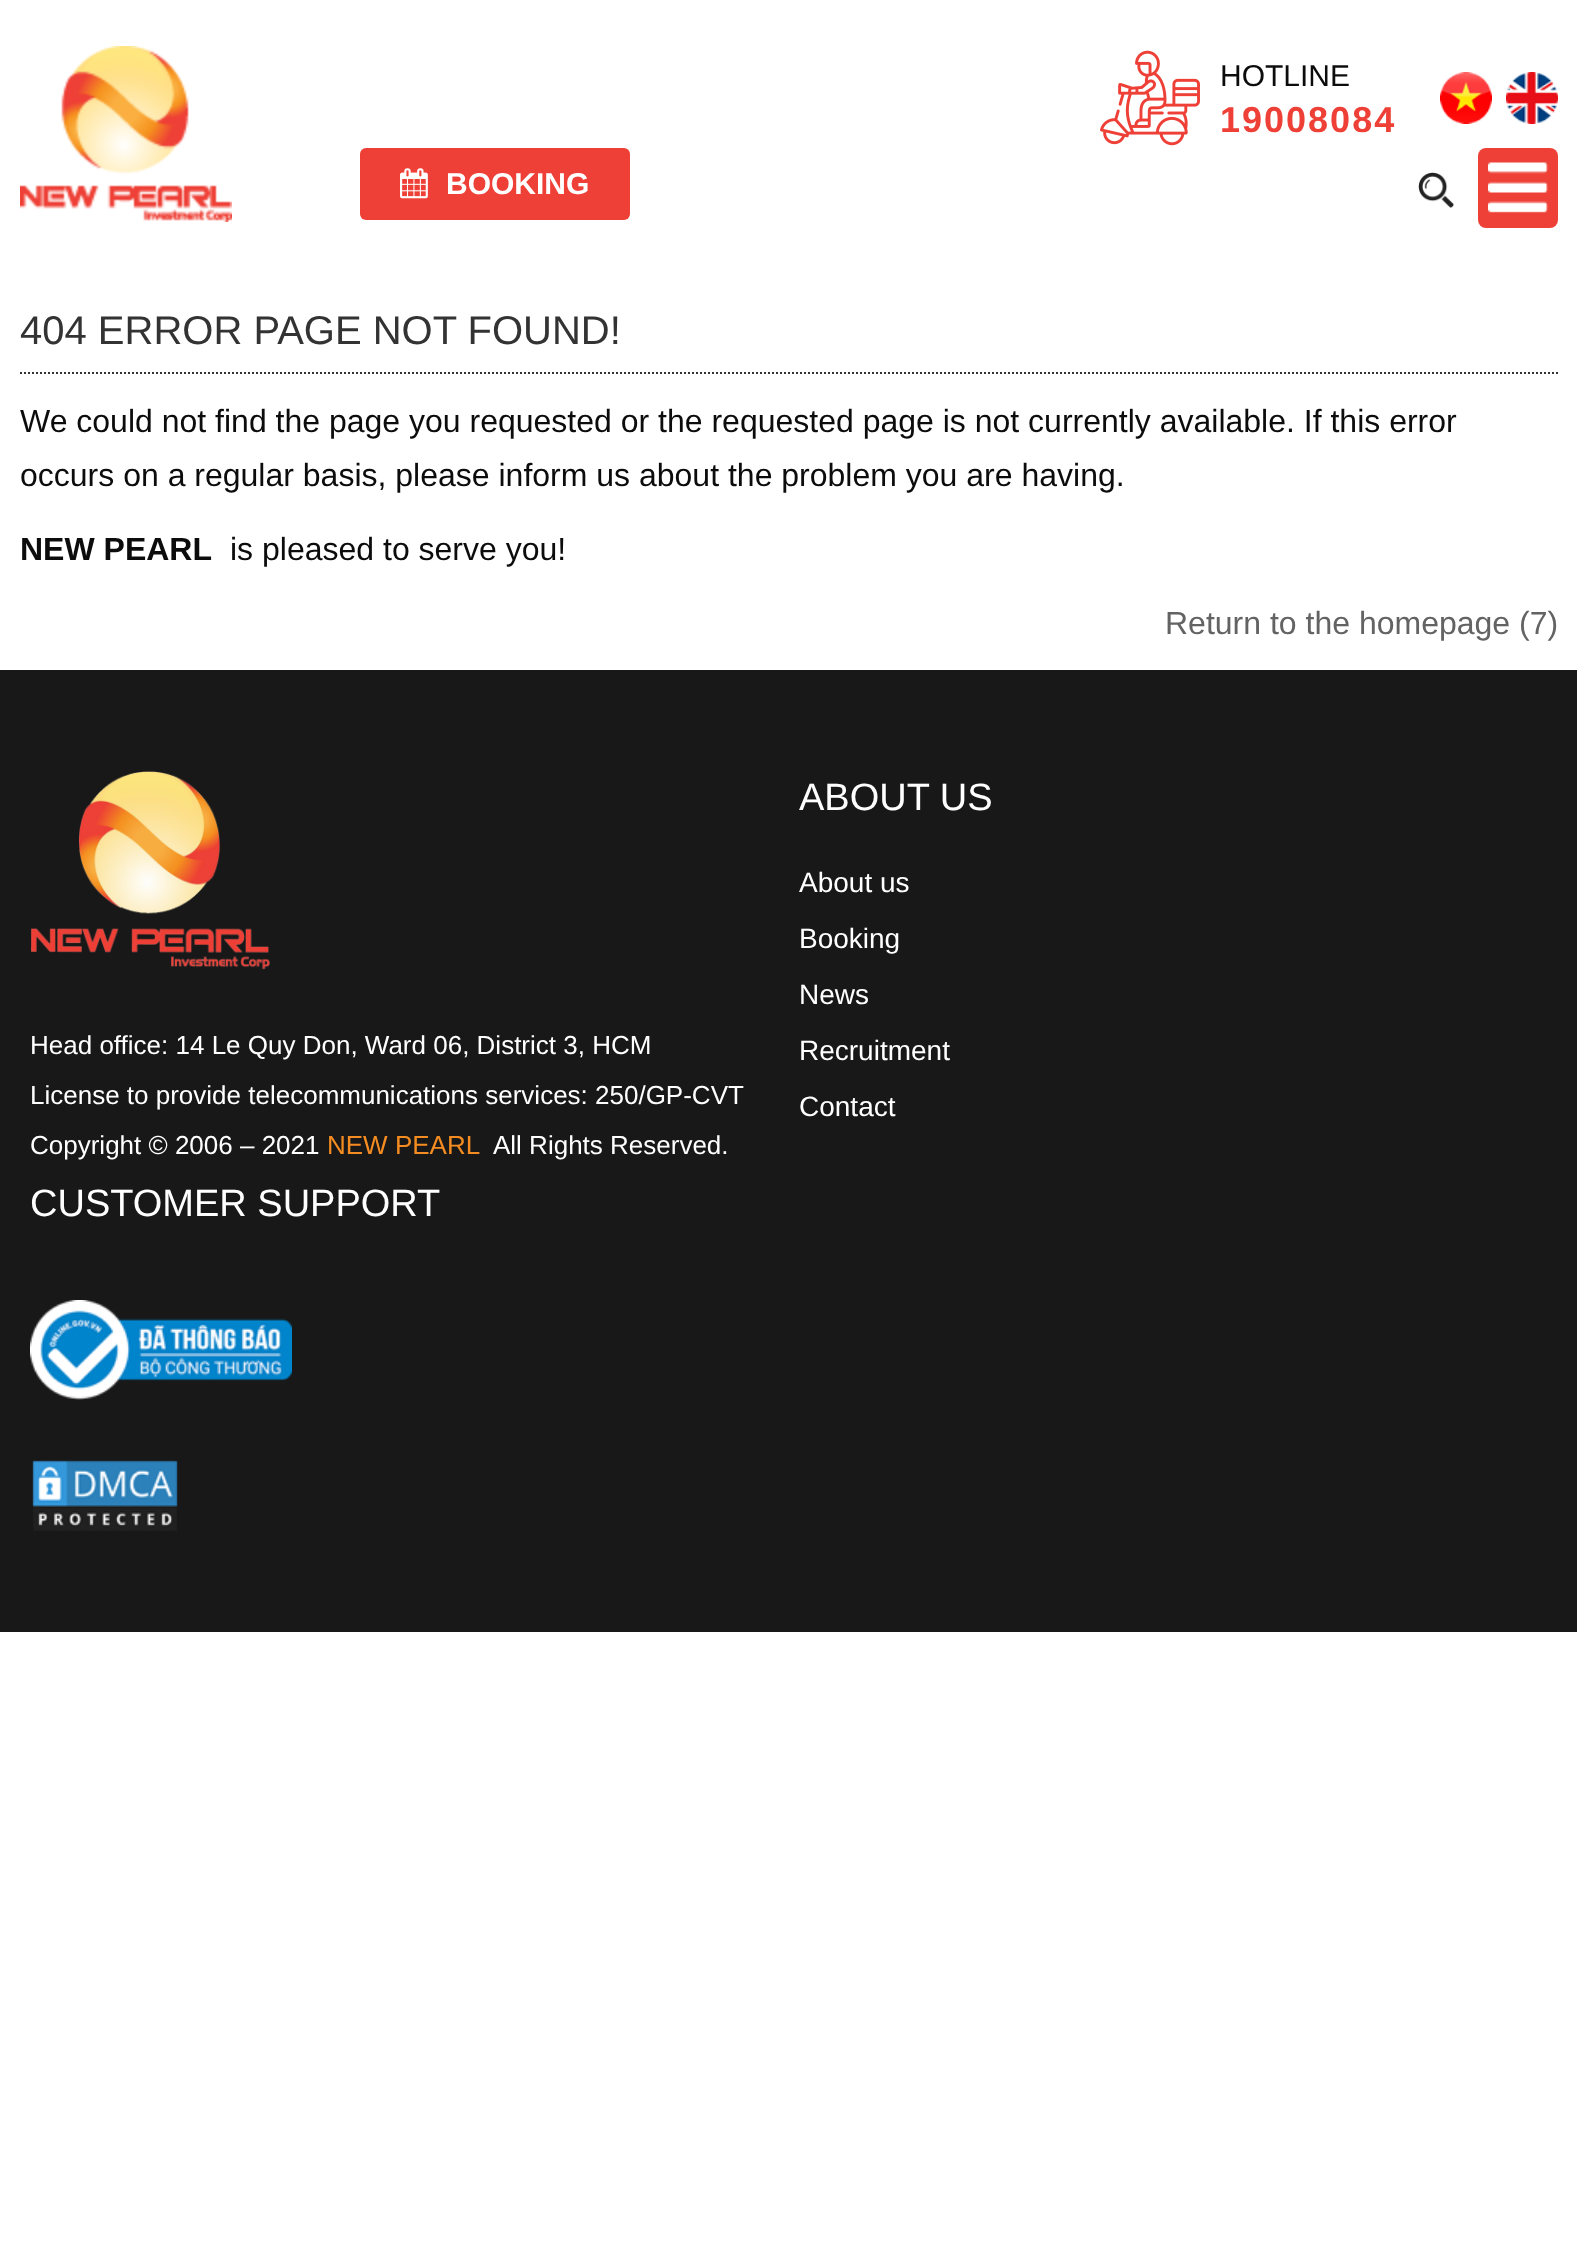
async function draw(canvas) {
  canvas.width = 1577;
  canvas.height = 2244;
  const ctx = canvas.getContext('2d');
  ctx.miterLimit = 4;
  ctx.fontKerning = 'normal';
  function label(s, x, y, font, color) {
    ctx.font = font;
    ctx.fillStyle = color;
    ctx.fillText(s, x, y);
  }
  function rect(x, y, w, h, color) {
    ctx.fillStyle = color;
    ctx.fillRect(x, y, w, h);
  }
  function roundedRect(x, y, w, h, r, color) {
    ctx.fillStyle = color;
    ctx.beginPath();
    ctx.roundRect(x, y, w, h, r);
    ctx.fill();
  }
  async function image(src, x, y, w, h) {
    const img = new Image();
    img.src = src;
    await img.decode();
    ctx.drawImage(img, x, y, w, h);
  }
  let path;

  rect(0, 0, 1577, 2244, '#fff');
  await image('assets/img1.png', 20, 46, 212, 176);
  await image('assets/img2.png', 1100, 50, 100, 96);
  label('HOTLINE', 1220, 86, '30px Liberation Sans', '#0c0c0c');
  ctx.letterSpacing = '2px';
  label('19008084', 1220, 132, 'bold 36px Liberation Sans', '#ee4037');
  await image('assets/img3.png', 1440, 72, 52, 52);
  await image('assets/img4.png', 1506, 72, 52, 52);
  roundedRect(360, 148, 270, 72, 6, '#ee4037');
  await image('assets/img5.png', 400, 168, 28, 31);
  ctx.letterSpacing = '0px';
  label('BOOKING', 446, 194, 'bold 30px Liberation Sans', '#fff');
  await image('assets/img6.png', 1418, 172, 36, 36);
  roundedRect(1478, 148, 80, 80, 8, '#ee4037');
  await image('assets/img7.png', 1488, 162, 60, 51);
  path = new Path2D('M20 373H1558');
  ctx.strokeStyle = '#333';
  ctx.lineWidth = 2;
  ctx.setLineDash([2, 2]);
  ctx.stroke(path);
  label('404 ERROR PAGE NOT FOUND!', 20, 344, '40px Liberation Sans', '#333');
  label('We could not find the page you requested or the requested page is not currently available. If this error', 20, 432, '32px Liberation Sans', '#0c0c0c');
  label('occurs on a regular basis, please inform us about the problem you are having.', 20, 486, '32px Liberation Sans', '#0c0c0c');
  label('NEW PEARL', 20, 560, 'bold 32px Liberation Sans', '#0c0c0c');
  label('is pleased to serve you!', 230, 560, '32px Liberation Sans', '#0c0c0c');
  label('Return to the homepage (7)', 1165, 634, '32px Liberation Sans', '#636363');
  rect(0, 670, 1577, 962, '#181818');
  await image('assets/img8.png', 31, 771, 239, 199);
  label('Head office: 14 Le Quy Don, Ward 06, District 3, HCM', 30, 1054, '26px Liberation Sans', '#fff');
  label('License to provide telecommunications services: 250/GP-CVT', 30, 1104, '26px Liberation Sans', '#fff');
  label('Copyright © 2006 – 2021', 30, 1154, '26px Liberation Sans', '#fff');
  label('NEW PEARL', 327, 1154, '26px Liberation Sans', '#f58c21');
  label('All Rights Reserved.', 493, 1154, '26px Liberation Sans', '#fff');
  label('ABOUT US', 799, 810, '38px Liberation Sans', '#fff');
  label('About us', 799, 892, '28px Liberation Sans', '#fff');
  label('Booking', 799, 948, '28px Liberation Sans', '#fff');
  label('News', 799, 1004, '28px Liberation Sans', '#fff');
  label('Recruitment', 799, 1060, '28px Liberation Sans', '#fff');
  label('Contact', 799, 1116, '28px Liberation Sans', '#fff');
  label('CUSTOMER SUPPORT', 30, 1216, '38px Liberation Sans', '#fff');
  await image('assets/img9.png', 30, 1300, 262, 100);
  await image('assets/img10.png', 32, 1460, 146, 71);
}

draw(document.querySelector('canvas'));
